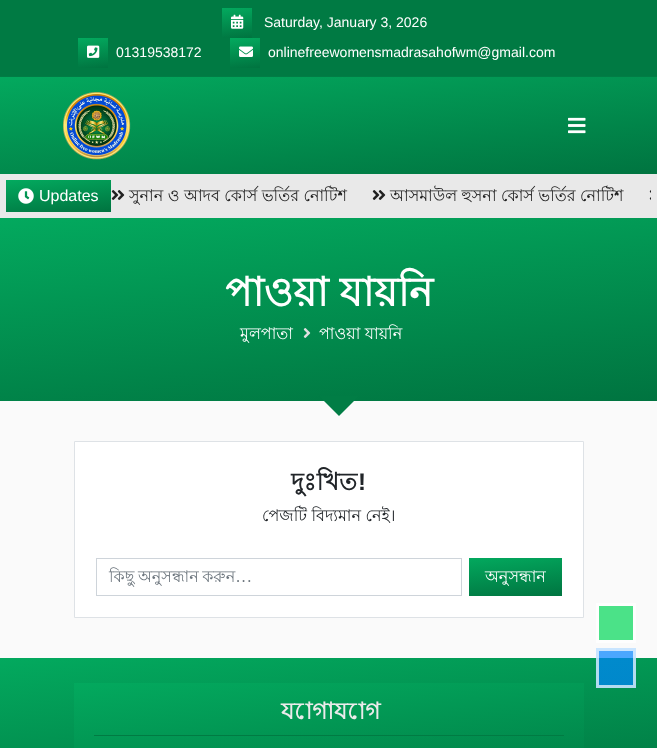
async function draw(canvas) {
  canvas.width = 657;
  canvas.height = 748;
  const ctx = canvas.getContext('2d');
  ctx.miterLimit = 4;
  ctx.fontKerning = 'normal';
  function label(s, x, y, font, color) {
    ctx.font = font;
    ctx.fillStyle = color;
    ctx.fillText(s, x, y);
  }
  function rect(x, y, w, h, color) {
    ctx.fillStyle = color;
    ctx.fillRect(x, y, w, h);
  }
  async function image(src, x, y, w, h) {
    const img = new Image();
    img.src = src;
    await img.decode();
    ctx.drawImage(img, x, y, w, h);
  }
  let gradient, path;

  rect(0, 0, 657, 748, '#007a43');
  gradient = ctx.createLinearGradient(235, 6.6, 239, 39);
  gradient.addColorStop(0, '#03a95e');
  gradient.addColorStop(1, '#007440');
  ctx.fillStyle = gradient;
  ctx.fillRect(222, 8, 30, 30);
  await image('assets/img1.png', 231, 14, 13, 15);
  label('Saturday, January 3, 2026', 264, 27, '14px Liberation Sans', '#fff');
  gradient = ctx.createLinearGradient(91, 37, 95, 69);
  gradient.addColorStop(0, '#03a95e');
  gradient.addColorStop(1, '#007440');
  ctx.fillStyle = gradient;
  ctx.fillRect(78, 38, 30, 30);
  await image('assets/img2.png', 87, 45, 13, 13);
  label('01319538172', 116, 57, '14px Liberation Sans', '#fff');
  gradient = ctx.createLinearGradient(243, 37, 247, 69);
  gradient.addColorStop(0, '#03a95e');
  gradient.addColorStop(1, '#007440');
  ctx.fillStyle = gradient;
  ctx.fillRect(230, 38, 30, 30);
  await image('assets/img3.png', 239, 46, 14, 11);
  label('onlinefreewomensmadrasahofwm@gmail.com', 268, 57, '14px Liberation Sans', '#fff');
  gradient = ctx.createLinearGradient(320, 43, 337, 208);
  gradient.addColorStop(0, '#03a95e');
  gradient.addColorStop(1, '#007440');
  ctx.fillStyle = gradient;
  ctx.fillRect(0, 77, 657, 97);
  rect(0, 76, 657, 1, '#017d45');
  await image('assets/img4.png', 63, 92, 68, 68);
  await image('assets/img5.png', 568, 117, 18, 17);
  rect(0, 174, 657, 44, '#e9e9e9');
  gradient = ctx.createLinearGradient(56, 175, 61, 217);
  gradient.addColorStop(0, '#03a95e');
  gradient.addColorStop(1, '#007440');
  ctx.fillStyle = gradient;
  ctx.fillRect(6, 180, 105, 32);
  await image('assets/img6.png', 18, 188, 16, 16);
  label('Updates', 39, 201, '16px Liberation Sans', '#fff');
  await image('assets/img7.png', 111, 190, 14, 10);
  label('সুনান ও আদব কোর্স ভর্তির নোটিশ', 129, 201, '16px Lohit Bengali', '#212121');
  await image('assets/img7.png', 372, 190, 14, 10);
  label('আসমাউল হুসনা কোর্স ভর্তির নোটিশ', 390, 201, '16px Lohit Bengali', '#212121');
  await image('assets/img8.png', 649, 190, 2, 10);
  gradient = ctx.createLinearGradient(315, 185, 342, 434);
  gradient.addColorStop(0, '#03a95e');
  gradient.addColorStop(1, '#007440');
  ctx.fillStyle = gradient;
  ctx.fillRect(0, 218, 657, 183);
  label('পাওয়া যায়নি', 225, 306, 'bold 40px Lohit Bengali', '#fff');
  label('মুলপাতা', 240, 339, '16px Lohit Bengali', '#fff');
  await image('assets/img9.png', 303, 328, 8, 10);
  label('পাওয়া যায়নি', 319, 339, '16px Lohit Bengali', '#fff');
  rect(0, 401, 657, 257, '#fafafa');
  ctx.fillStyle = '#017d45';
  path = new Path2D('M319 396H359L339 416Z');
  ctx.fill(path);
  rect(596, 648, 40, 10, '#4ba7fe');
  ctx.fillStyle = '#fff';
  ctx.beginPath();
  ctx.rect(74.5, 441.5, 509, 176);
  ctx.fill();
  ctx.strokeStyle = '#dee2e6';
  ctx.stroke();
  label('দুঃখিত', 291, 490, 'bold 24px Lohit Bengali', '#212529');
  label('!', 358, 490, 'bold 24px Liberation Sans', '#212529');
  label('পেজটি বিদ্যমান নেই।', 262, 521, '16px Lohit Bengali', '#212529');
  ctx.strokeStyle = '#ced4da';
  ctx.strokeRect(96.5, 558.5, 365, 37);
  ctx.wordSpacing = '-1px';
  label('কিছু অনুসন্ধান করুন...', 109, 582, '16px Lohit Bengali', '#6c757d');
  gradient = ctx.createLinearGradient(513, 553, 518, 601);
  gradient.addColorStop(0, '#03a95e');
  gradient.addColorStop(1, '#007440');
  ctx.fillStyle = gradient;
  ctx.fillRect(469, 558, 93, 38);
  ctx.wordSpacing = '0px';
  label('অনুসন্ধান', 485, 582, '16px Lohit Bengali', '#fff');
  gradient = ctx.createLinearGradient(315, 625, 342, 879);
  gradient.addColorStop(0, '#03a95e');
  gradient.addColorStop(1, '#006a3a');
  ctx.fillStyle = gradient;
  ctx.fillRect(0, 658, 657, 90);
  gradient = ctx.createLinearGradient(315, 625, 342, 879);
  gradient.addColorStop(0, '#018fcf');
  gradient.addColorStop(1, '#007cc4');
  ctx.fillStyle = gradient;
  ctx.fillRect(596, 658, 40, 30);
  gradient = ctx.createLinearGradient(319, 657, 339, 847);
  gradient.addColorStop(0, '#03a95e');
  gradient.addColorStop(1, '#007440');
  ctx.fillStyle = gradient;
  ctx.fillRect(74, 683, 510, 65);
  rect(94, 735, 470, 1, '#017b43');
  label('যোগাযোগ', 281, 719, 'bold 23px Lohit Bengali', '#ebebeb');
  ctx.fillStyle = '#4be288';
  ctx.beginPath();
  ctx.rect(597.5, 604.5, 37, 37);
  ctx.fill();
  ctx.strokeStyle = '#fefefe';
  ctx.lineWidth = 3;
  ctx.stroke();
  ctx.strokeStyle = '#ffffffb3';
  ctx.strokeRect(597.5, 649.5, 37, 37);
}

draw(document.querySelector('canvas'));
